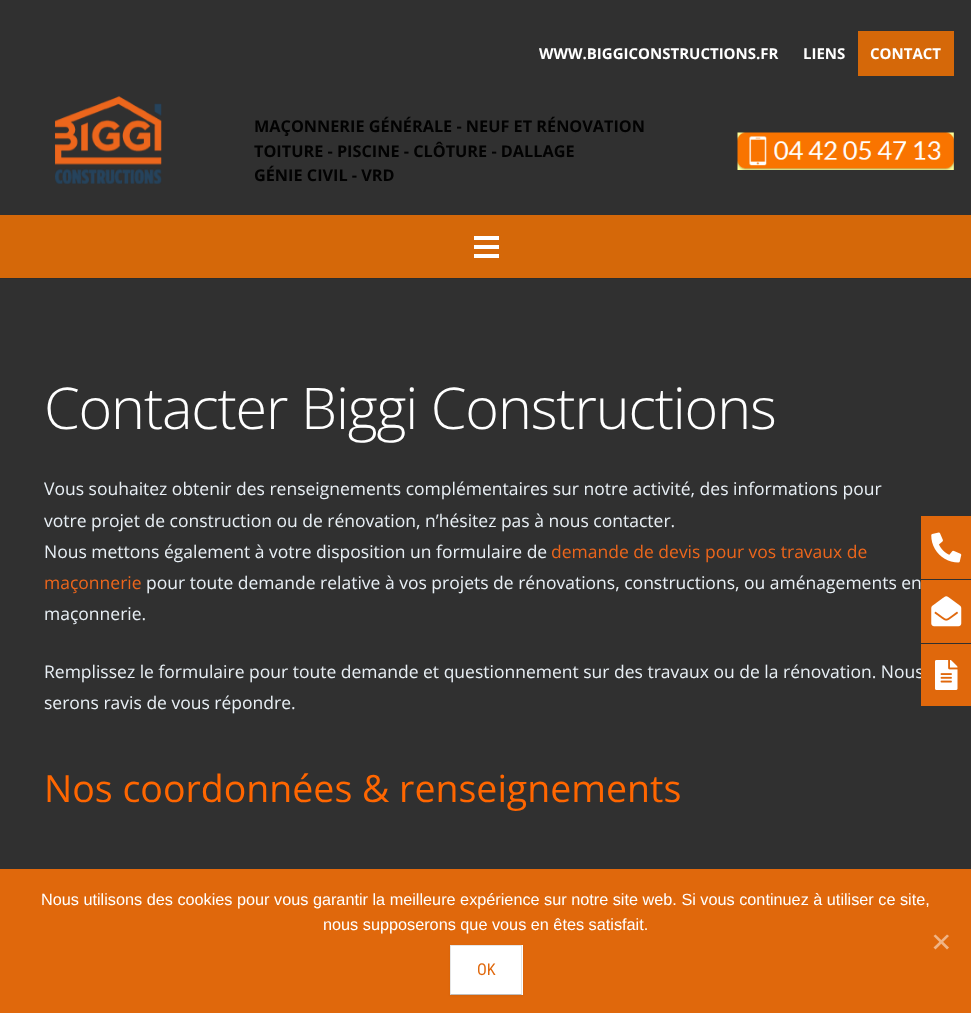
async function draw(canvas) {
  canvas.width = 971;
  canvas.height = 1013;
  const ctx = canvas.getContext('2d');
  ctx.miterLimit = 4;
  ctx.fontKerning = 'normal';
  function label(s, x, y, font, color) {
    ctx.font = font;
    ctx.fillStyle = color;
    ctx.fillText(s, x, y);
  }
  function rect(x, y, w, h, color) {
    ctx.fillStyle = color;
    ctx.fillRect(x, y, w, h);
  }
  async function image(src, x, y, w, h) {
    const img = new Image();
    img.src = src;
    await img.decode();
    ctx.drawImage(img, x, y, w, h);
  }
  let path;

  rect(0, 0, 971, 1013, '#303030');
  label('WWW.BIGGICONSTRUCTIONS.FR', 539, 59, 'bold 15px Open Sans', '#fff');
  label('LIENS', 803, 59, 'bold 15px Open Sans', '#fff');
  rect(858, 31, 96, 45, '#d56809');
  label('CONTACT', 870, 59, 'bold 15px Open Sans', '#fff');
  await image('assets/img1.png', 55, 96, 107, 88);
  label('MAÇONNERIE GÉNÉRALE - NEUF ET RÉNOVATION', 254, 132, 'bold 16.25px Open Sans', '#020202');
  label('TOITURE - PISCINE - CLÔTURE - DALLAGE', 254, 157, 'bold 16.25px Open Sans', '#020202');
  label('GÉNIE CIVIL - VRD', 254, 181, 'bold 16.25px Open Sans', '#020202');
  await image('assets/img2.png', 737, 132, 217, 38);
  rect(0, 278, 971, 1, '#2c2c2c');
  rect(0, 215, 971, 63, '#d56809');
  rect(474, 245, 25, 4, '#fff');
  rect(474, 236, 25, 4, '#fff');
  rect(474, 254, 25, 4, '#fff');
  ctx.letterSpacing = '-1.15px';
  label('Contacter Biggi Constructions', 44, 429, '300 57.5px Open Sans', '#fff');
  ctx.letterSpacing = '0px';
  label('Vous souhaitez obtenir des renseignements complémentaires sur notre activité, des informations pour', 44, 495, '17.5px Open Sans', '#e8eff5');
  label('votre projet de construction ou de rénovation, n’hésitez pas à nous contacter.', 44, 527, '17.5px Open Sans', '#e8eff5');
  label('Nous mettons également à votre disposition un formulaire de', 44, 558, '17.5px Open Sans', '#e8eff5');
  label('demande de devis pour vos travaux de', 551, 558, '17.5px Open Sans', '#ec661c');
  label('maçonnerie', 44, 589, '17.5px Open Sans', '#ec661c');
  label('pour toute demande relative à vos projets de rénovations, constructions, ou aménagements en', 146, 589, '17.5px Open Sans', '#e8eff5');
  label('maçonnerie.', 44, 620, '17.5px Open Sans', '#e8eff5');
  label('Remplissez le formulaire pour toute demande et questionnement sur des travaux ou de la rénovation. Nous', 44, 678, '17.5px Open Sans', '#e8eff5');
  label('serons ravis de vous répondre.', 44, 709, '17.5px Open Sans', '#e8eff5');
  label('Nos coordonnées & renseignements', 44, 802, '37.5px Open Sans', '#f60');
  rect(921, 516, 50, 63, '#e0680c');
  await image('assets/img3.png', 931, 532, 31, 31);
  rect(921, 580, 50, 63, '#e0680c');
  await image('assets/img4.png', 931, 596, 31, 31);
  rect(921, 644, 50, 62, '#e0680c');
  await image('assets/img5.png', 935, 660, 23, 30);
  rect(0, 869, 971, 144, '#e0680c');
  label('Nous utilisons des cookies pour vous garantir la meilleure expérience sur notre site web. Si vous continuez à utiliser ce site,', 41, 905, '16.25px Liberation Sans', '#fff');
  label('nous supposerons que vous en êtes satisfait.', 323, 930, '16.25px Liberation Sans', '#fff');
  ctx.fillStyle = '#f0b486';
  path = new Path2D('M947 934.5L949 936L935.5 949.5L933.5 947.5Z');
  ctx.fill(path);
  path = new Path2D('M933.5 936L935.5 934.5L949 947.5L947 949.5Z');
  ctx.fill(path);
  ctx.fillStyle = '#0000000d';
  ctx.filter = 'blur(1px)';
  ctx.beginPath();
  ctx.rect(450, 946, 73, 50);
  ctx.fill();
  ctx.filter = 'none';
  rect(450, 945, 73, 50, '#fff');
  ctx.fillStyle = '#e6e6e6';
  path = new Path2D('M450 945H522L521 946H451Z');
  ctx.fill(path);
  ctx.fillStyle = '#0000001a';
  path = new Path2D('M522 945V995L521 994V946Z');
  ctx.fill(path);
  ctx.fillStyle = '#00000040';
  path = new Path2D('M522 995H450L451 994H521Z');
  ctx.fill(path);
  ctx.fillStyle = '#0000001a';
  path = new Path2D('M450 995V945L451 946V994Z');
  ctx.fill(path);
  label('OK', 477, 975, '16.25px Roboto Condensed', '#e0680c');
}

draw(document.querySelector('canvas'));
